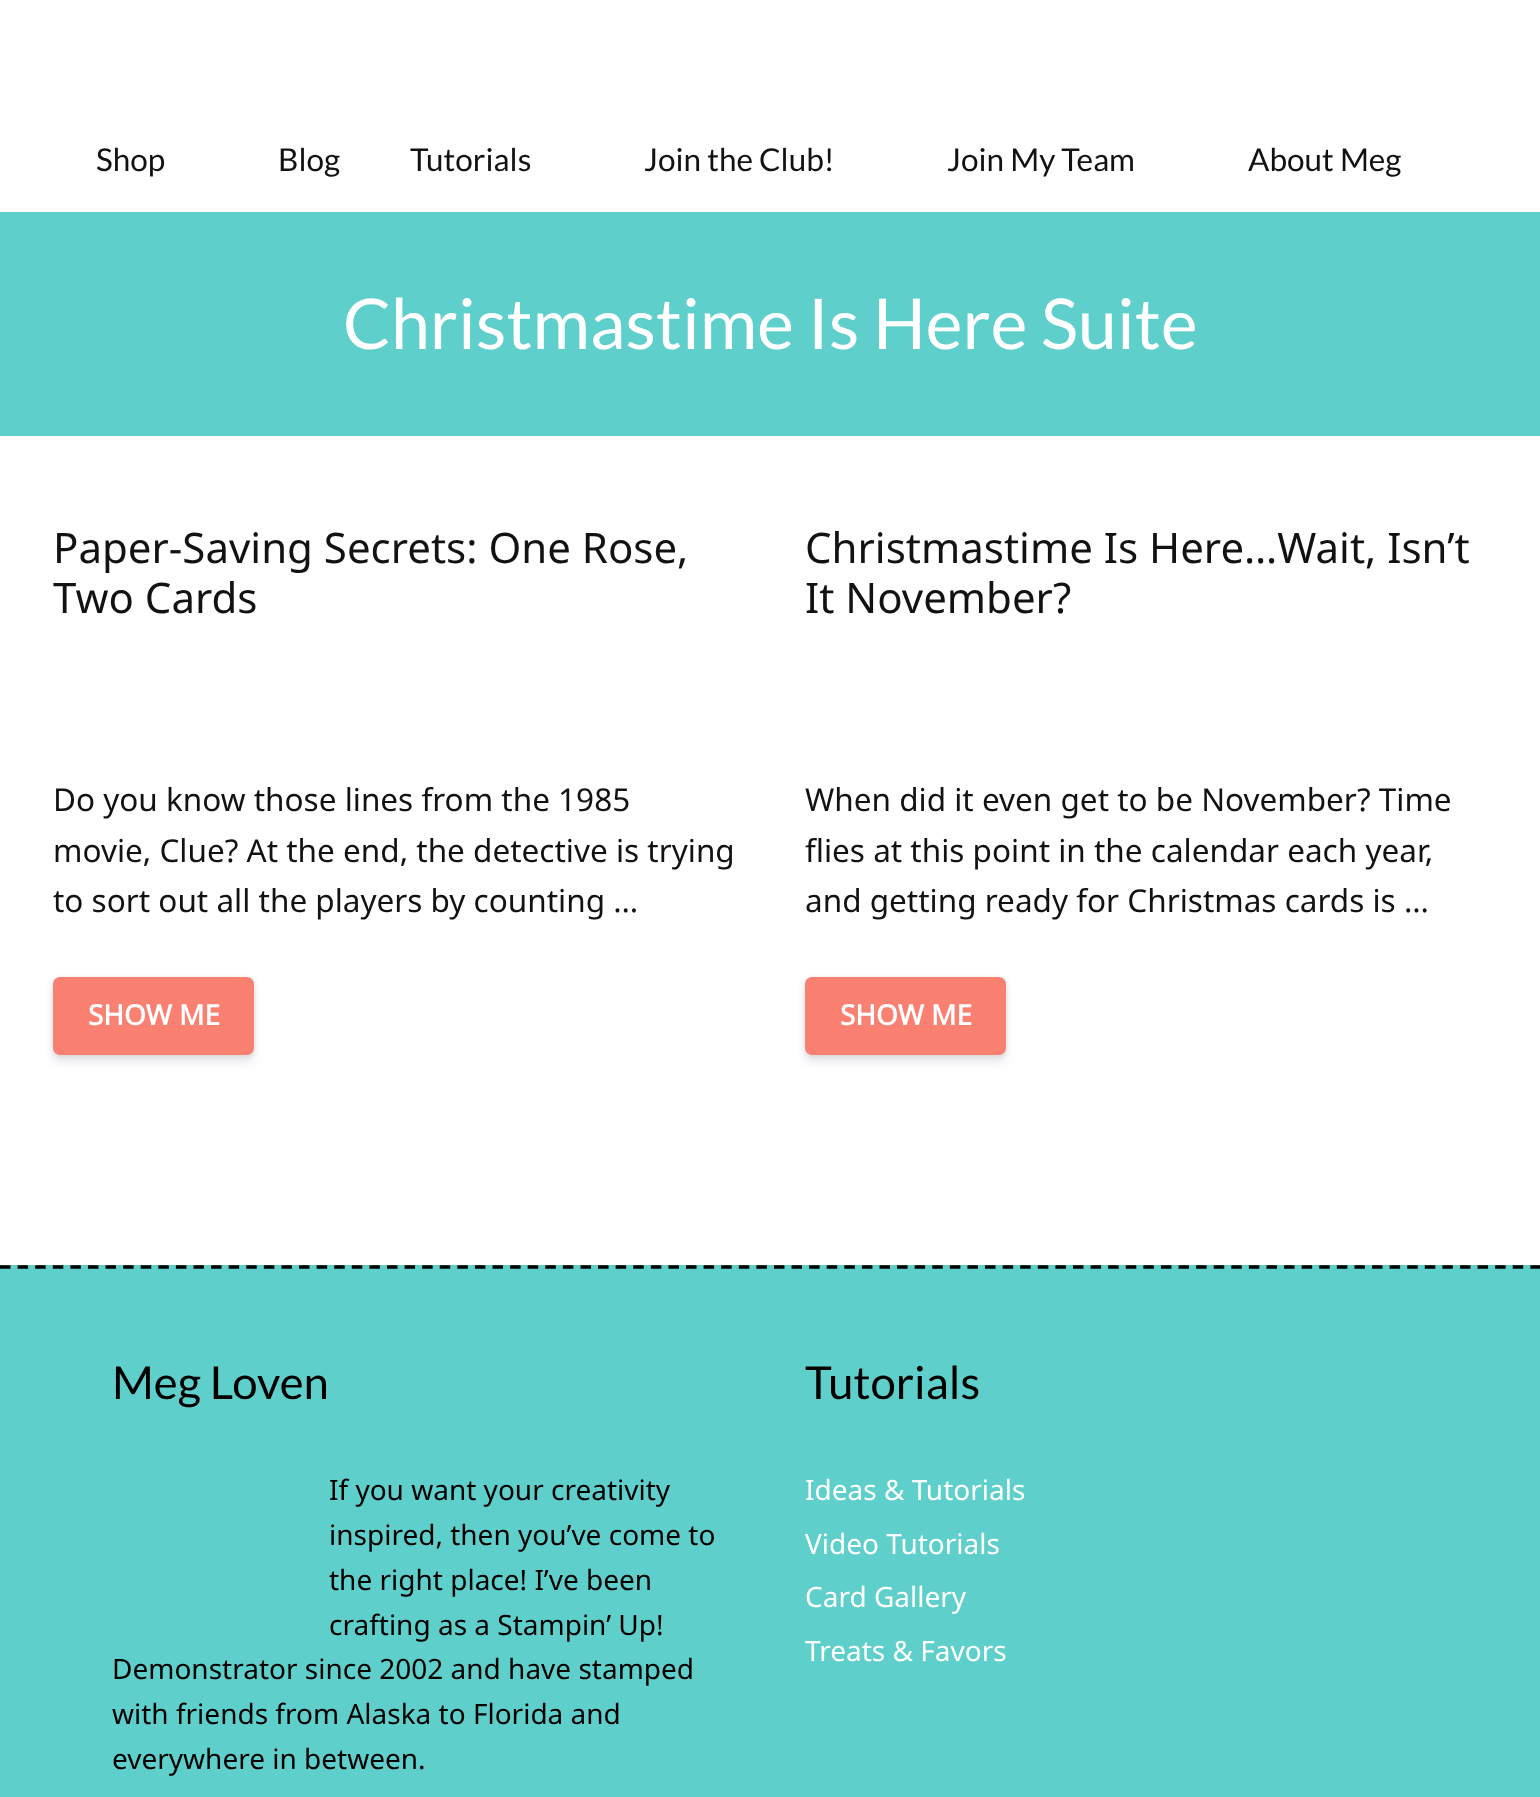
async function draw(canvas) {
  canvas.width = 1540;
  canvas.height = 1797;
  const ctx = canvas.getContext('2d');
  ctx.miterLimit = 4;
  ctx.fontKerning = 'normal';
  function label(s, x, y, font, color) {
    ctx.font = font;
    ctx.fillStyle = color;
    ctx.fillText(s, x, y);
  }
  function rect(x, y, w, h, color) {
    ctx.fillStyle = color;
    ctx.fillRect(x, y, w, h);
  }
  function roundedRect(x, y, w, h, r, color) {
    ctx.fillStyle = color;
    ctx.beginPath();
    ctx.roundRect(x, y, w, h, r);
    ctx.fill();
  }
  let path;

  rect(0, 0, 1540, 1797, '#fff');
  label('Shop', 96, 171, '31.5px Lato', '#121212');
  label('Blog', 278, 171, '31.5px Lato', '#121212');
  label('Tutorials', 410, 171, '31.5px Lato', '#121212');
  label('Join the Club!', 644, 171, '31.5px Lato', '#121212');
  label('Join My Team', 947, 171, '31.5px Lato', '#121212');
  label('About Meg', 1248, 171, '31.5px Lato', '#121212');
  rect(0, 212, 1540, 224, '#5fcfcb');
  label('Christmastime Is Here Suite', 343, 349, '70px Lato', '#fff');
  label('Paper-Saving Secrets: One Rose,', 53, 563, '42px Noto Sans', '#121212');
  label('Two Cards', 53, 613, '42px Noto Sans', '#121212');
  label('Do you know those lines from the 1985', 53, 811, '31.5px Noto Sans', '#121212');
  label('movie, Clue? At the end, the detective is trying', 53, 862, '31.5px Noto Sans', '#121212');
  label('to sort out all the players by counting …', 53, 912, '31.5px Noto Sans', '#121212');
  ctx.fillStyle = '#00000014';
  ctx.filter = 'blur(2.5px)';
  ctx.beginPath();
  ctx.roundRect(53, 978, 201, 79, 7);
  ctx.fill();
  ctx.filter = 'none';
  ctx.fillStyle = '#32325d1c';
  ctx.filter = 'blur(5px)';
  ctx.beginPath();
  ctx.roundRect(53, 984, 201, 78, 7);
  ctx.fill();
  ctx.filter = 'none';
  roundedRect(53, 977, 201, 78, 7, '#fa8072');
  label('SHOW ME', 88, 1025, 'bold 28px Noto Sans', '#fff');
  label('Christmastime Is Here…Wait, Isn’t', 805, 563, '42px Noto Sans', '#121212');
  label('It November?', 805, 613, '42px Noto Sans', '#121212');
  label('When did it even get to be November? Time', 805, 811, '31.5px Noto Sans', '#121212');
  label('flies at this point in the calendar each year,', 805, 862, '31.5px Noto Sans', '#121212');
  label('and getting ready for Christmas cards is …', 805, 912, '31.5px Noto Sans', '#121212');
  ctx.fillStyle = '#00000014';
  ctx.filter = 'blur(2.5px)';
  ctx.beginPath();
  ctx.roundRect(805, 978, 201, 79, 7);
  ctx.fill();
  ctx.filter = 'none';
  ctx.fillStyle = '#32325d1c';
  ctx.filter = 'blur(5px)';
  ctx.beginPath();
  ctx.roundRect(805, 984, 201, 78, 7);
  ctx.fill();
  ctx.filter = 'none';
  roundedRect(805, 977, 201, 78, 7, '#fa8072');
  label('SHOW ME', 840, 1025, 'bold 28px Noto Sans', '#fff');
  rect(0, 1265, 1540, 532, '#5fcfcb');
  path = new Path2D('M0 1267H1540');
  ctx.strokeStyle = '#000';
  ctx.lineWidth = 3.5;
  ctx.setLineDash([10.5, 7.09]);
  ctx.stroke(path);
  label('Meg Loven', 112, 1399, '45.5px Lato', '#000');
  label('If you want your creativity', 329, 1500, '28px Noto Sans', '#000');
  label('inspired, then you’ve come to', 329, 1545, '28px Noto Sans', '#000');
  label('the right place! I’ve been', 329, 1590, '28px Noto Sans', '#000');
  label('crafting as a Stampin’ Up!', 329, 1635, '28px Noto Sans', '#000');
  label('Demonstrator since 2002 and have stamped', 112, 1679, '28px Noto Sans', '#000');
  label('with friends from Alaska to Florida and', 112, 1724, '28px Noto Sans', '#000');
  label('everywhere in between.', 112, 1769, '28px Noto Sans', '#000');
  label('Tutorials', 805, 1399, '45.5px Lato', '#000');
  label('Ideas & Tutorials', 805, 1500, '28px Noto Sans', '#fff');
  label('Video Tutorials', 805, 1554, '28px Noto Sans', '#fff');
  label('Card Gallery', 805, 1607, '28px Noto Sans', '#fff');
  label('Treats & Favors', 805, 1661, '28px Noto Sans', '#fff');
}

draw(document.querySelector('canvas'));
